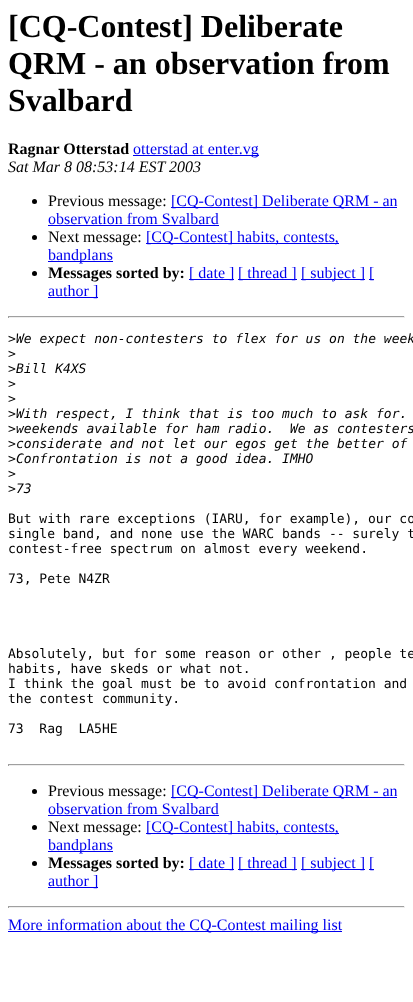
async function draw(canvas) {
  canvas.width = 413;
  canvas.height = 1002;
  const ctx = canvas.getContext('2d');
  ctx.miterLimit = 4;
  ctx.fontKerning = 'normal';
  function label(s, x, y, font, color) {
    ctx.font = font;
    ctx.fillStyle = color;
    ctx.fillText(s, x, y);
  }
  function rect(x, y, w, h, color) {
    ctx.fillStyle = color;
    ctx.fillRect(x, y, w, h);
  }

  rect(0, 0, 413, 1002, '#fff');
  label('[CQ-Contest] Deliberate', 8, 37, 'bold 32px Liberation Serif', '#000');
  label('QRM - an observation from', 8, 74, 'bold 32px Liberation Serif', '#000');
  label('Svalbard', 8, 111, 'bold 32px Liberation Serif', '#000');
  label('Ragnar Otterstad', 8, 154, 'bold 16px Liberation Serif', '#000');
  rect(133, 155, 126, 1, '#00e');
  label('otterstad at enter.vg', 133, 154, '16px Liberation Serif', '#00e');
  label('Sat Mar 8 08:53:14 EST 2003', 8, 172, 'italic 16px Liberation Serif', '#000');
  ctx.beginPath();
  ctx.arc(34.5, 201.5, 2.5, 0, 2 * Math.PI);
  ctx.fill();
  label('Previous message:', 48, 206, '16px Liberation Serif', '#000');
  rect(171, 207, 226, 1, '#00e');
  label('[CQ-Contest] Deliberate QRM - an', 171, 206, '16px Liberation Serif', '#00e');
  label('observation from Svalbard', 48, 224, '16px Liberation Serif', '#00e');
  rect(48, 225, 171, 1, '#00e');
  ctx.fillStyle = '#000';
  ctx.beginPath();
  ctx.arc(34.5, 237.5, 2.5, 0, 2 * Math.PI);
  ctx.fill();
  label('Next message:', 48, 242, '16px Liberation Serif', '#000');
  rect(146, 243, 193, 1, '#00e');
  label('[CQ-Contest] habits, contests,', 146, 242, '16px Liberation Serif', '#00e');
  rect(48, 261, 65, 1, '#00e');
  label('bandplans', 48, 260, '16px Liberation Serif', '#00e');
  ctx.fillStyle = '#000';
  ctx.beginPath();
  ctx.arc(34.5, 273.5, 2.5, 0, 2 * Math.PI);
  ctx.fill();
  label('Messages sorted by:', 48, 278, 'bold 16px Liberation Serif', '#000');
  rect(189, 279, 45, 1, '#00e');
  label('[ date ]', 189, 278, '16px Liberation Serif', '#00e');
  rect(238, 279, 59, 1, '#00e');
  label('[ thread ]', 238, 278, '16px Liberation Serif', '#00e');
  rect(301, 279, 64, 1, '#00e');
  label('[ subject ]', 301, 278, '16px Liberation Serif', '#00e');
  rect(369, 279, 5, 1, '#00e');
  label('[', 369, 278, '16px Liberation Serif', '#00e');
  rect(48, 297, 50, 1, '#00e');
  label('author ]', 48, 296, '16px Liberation Serif', '#00e');
  rect(8, 316, 397, 1, '#9f9f9f');
  rect(404, 316, 1, 2, '#eee');
  rect(8, 317, 397, 1, '#eee');
  rect(8, 316, 1, 2, '#9f9f9f');
  label('>', 8, 343, '13px DejaVu Sans Mono', '#000');
  label('We expect non-contesters to flex for us on the week', 16, 343, 'italic 13px DejaVu Sans Mono', '#000');
  label('>', 8, 358, '13px DejaVu Sans Mono', '#000');
  label('>', 8, 373, '13px DejaVu Sans Mono', '#000');
  label('Bill K4XS', 16, 373, 'italic 13px DejaVu Sans Mono', '#000');
  label('>', 8, 388, '13px DejaVu Sans Mono', '#000');
  label('>', 8, 403, '13px DejaVu Sans Mono', '#000');
  label('>', 8, 418, '13px DejaVu Sans Mono', '#000');
  label('With respect, I think that is too much to ask for.', 16, 418, 'italic 13px DejaVu Sans Mono', '#000');
  label('>', 8, 433, '13px DejaVu Sans Mono', '#000');
  label('weekends available for ham radio.  We as contesters', 16, 433, 'italic 13px DejaVu Sans Mono', '#000');
  label('>', 8, 448, '13px DejaVu Sans Mono', '#000');
  label('considerate and not let our egos get the better of', 16, 448, 'italic 13px DejaVu Sans Mono', '#000');
  label('>', 8, 463, '13px DejaVu Sans Mono', '#000');
  label('Confrontation is not a good idea. IMHO', 16, 463, 'italic 13px DejaVu Sans Mono', '#000');
  label('>', 8, 478, '13px DejaVu Sans Mono', '#000');
  label('>', 8, 493, '13px DejaVu Sans Mono', '#000');
  label('73', 16, 493, 'italic 13px DejaVu Sans Mono', '#000');
  label('But with rare exceptions (IARU, for example), our co', 8, 523, '13px DejaVu Sans Mono', '#000');
  label('single band, and none use the WARC bands -- surely t', 8, 538, '13px DejaVu Sans Mono', '#000');
  label('contest-free spectrum on almost every weekend.', 8, 553, '13px DejaVu Sans Mono', '#000');
  label('73, Pete N4ZR', 8, 583, '13px DejaVu Sans Mono', '#000');
  label('Absolutely, but for some reason or other , people te', 8, 658, '13px DejaVu Sans Mono', '#000');
  label('habits, have skeds or what not.', 8, 673, '13px DejaVu Sans Mono', '#000');
  label('I think the goal must be to avoid confrontation and', 8, 688, '13px DejaVu Sans Mono', '#000');
  label('the contest community.', 8, 703, '13px DejaVu Sans Mono', '#000');
  label('73  Rag  LA5HE', 8, 733, '13px DejaVu Sans Mono', '#000');
  rect(8, 764, 397, 1, '#9f9f9f');
  rect(404, 764, 1, 2, '#eee');
  rect(8, 765, 397, 1, '#eee');
  rect(8, 764, 1, 2, '#9f9f9f');
  ctx.fillStyle = '#000';
  ctx.beginPath();
  ctx.arc(34.5, 791.5, 2.5, 0, 2 * Math.PI);
  ctx.fill();
  label('Previous message:', 48, 796, '16px Liberation Serif', '#000');
  rect(171, 797, 226, 1, '#00e');
  label('[CQ-Contest] Deliberate QRM - an', 171, 796, '16px Liberation Serif', '#00e');
  label('observation from Svalbard', 48, 814, '16px Liberation Serif', '#00e');
  rect(48, 815, 171, 1, '#00e');
  ctx.fillStyle = '#000';
  ctx.beginPath();
  ctx.arc(34.5, 827.5, 2.5, 0, 2 * Math.PI);
  ctx.fill();
  label('Next message:', 48, 832, '16px Liberation Serif', '#000');
  rect(146, 833, 193, 1, '#00e');
  label('[CQ-Contest] habits, contests,', 146, 832, '16px Liberation Serif', '#00e');
  rect(48, 851, 65, 1, '#00e');
  label('bandplans', 48, 850, '16px Liberation Serif', '#00e');
  ctx.fillStyle = '#000';
  ctx.beginPath();
  ctx.arc(34.5, 863.5, 2.5, 0, 2 * Math.PI);
  ctx.fill();
  label('Messages sorted by:', 48, 868, 'bold 16px Liberation Serif', '#000');
  rect(189, 869, 45, 1, '#00e');
  label('[ date ]', 189, 868, '16px Liberation Serif', '#00e');
  rect(238, 869, 59, 1, '#00e');
  label('[ thread ]', 238, 868, '16px Liberation Serif', '#00e');
  rect(301, 869, 64, 1, '#00e');
  label('[ subject ]', 301, 868, '16px Liberation Serif', '#00e');
  rect(369, 869, 5, 1, '#00e');
  label('[', 369, 868, '16px Liberation Serif', '#00e');
  rect(48, 887, 50, 1, '#00e');
  label('author ]', 48, 886, '16px Liberation Serif', '#00e');
  rect(8, 906, 397, 1, '#9f9f9f');
  rect(404, 906, 1, 2, '#eee');
  rect(8, 907, 397, 1, '#eee');
  rect(8, 906, 1, 2, '#9f9f9f');
  rect(8, 931, 334, 1, '#00e');
  label('More information about the CQ-Contest mailing list', 8, 930, '16px Liberation Serif', '#00e');
}

draw(document.querySelector('canvas'));
